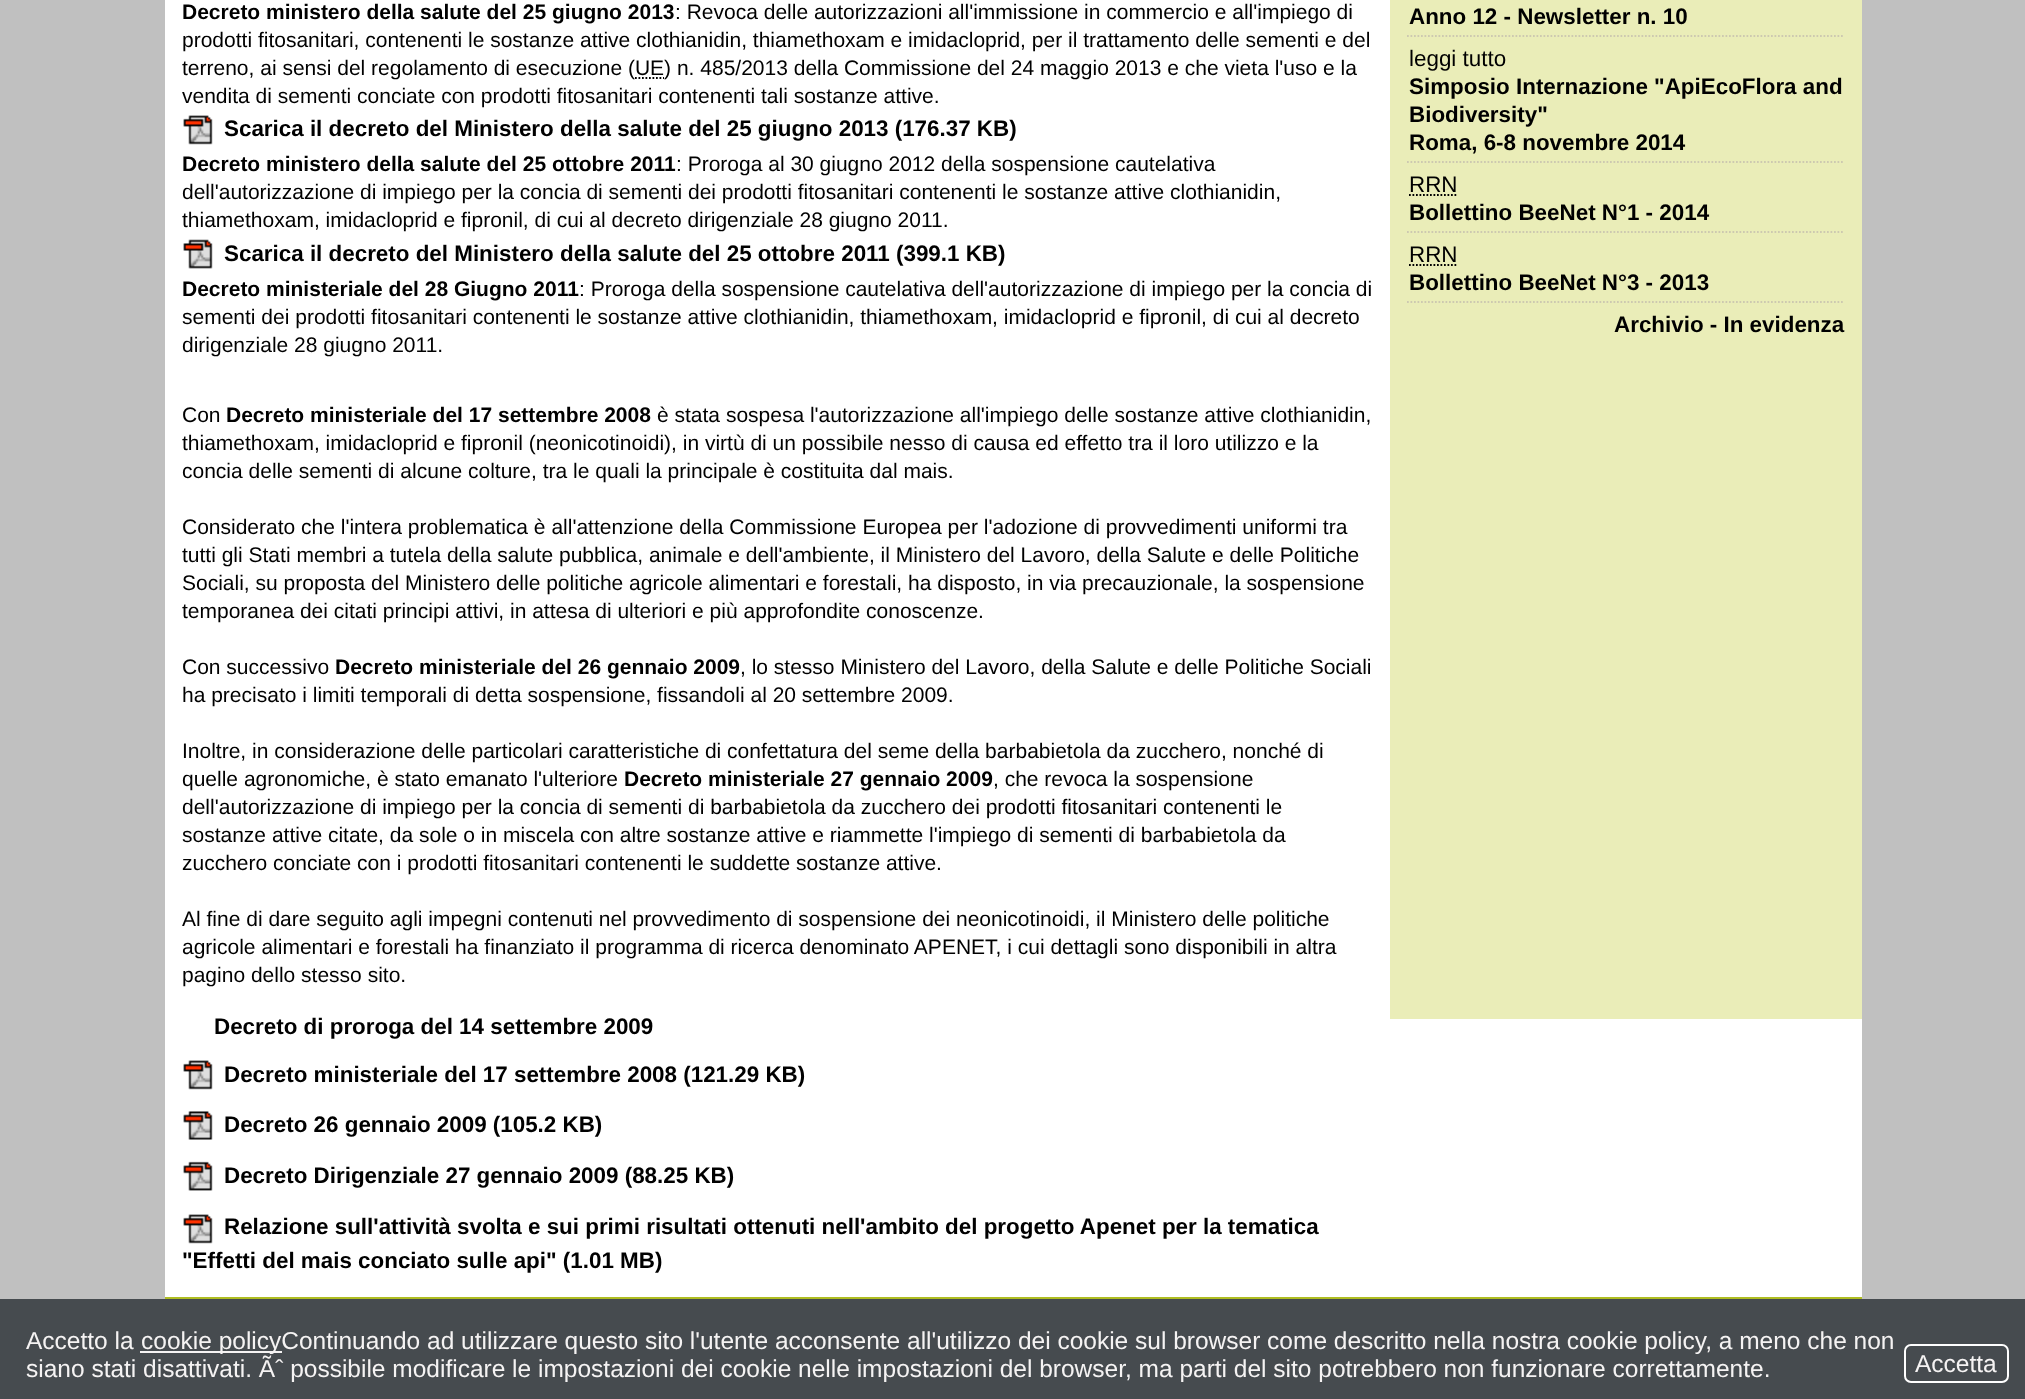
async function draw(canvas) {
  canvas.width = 2025;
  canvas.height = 1399;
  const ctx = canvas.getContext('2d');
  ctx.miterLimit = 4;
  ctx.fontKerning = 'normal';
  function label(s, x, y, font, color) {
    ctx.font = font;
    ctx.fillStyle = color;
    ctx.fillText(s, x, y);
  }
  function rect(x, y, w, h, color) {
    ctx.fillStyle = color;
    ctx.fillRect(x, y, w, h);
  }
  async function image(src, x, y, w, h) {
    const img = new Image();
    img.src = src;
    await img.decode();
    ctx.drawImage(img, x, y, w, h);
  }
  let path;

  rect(0, 0, 2025, 1399, '#c0c0c0');
  rect(165, 0, 1697, 1297, '#fff');
  label('Decreto ministero della salute del 25 giugno 2013', 182, 19, 'bold 21px Liberation Sans', '#000');
  label(': Revoca delle autorizzazioni all\'immissione in commercio e all\'impiego di', 675, 19, '21px Liberation Sans', '#000');
  label('prodotti fitosanitari, contenenti le sostanze attive clothianidin, thiamethoxam e imidacloprid, per il trattamento delle sementi e del', 182, 47, '21px Liberation Sans', '#000');
  label('terreno, ai sensi del regolamento di esecuzione (UE) n. 485/2013 della Commissione del 24 maggio 2013 e che vieta l\'uso e la', 182, 75, '21px Liberation Sans', '#000');
  path = new Path2D('M635 78H664');
  ctx.strokeStyle = '#000';
  ctx.lineWidth = 1.8;
  ctx.setLineDash([1.75, 1.75]);
  ctx.stroke(path);
  label('vendita di sementi conciate con prodotti fitosanitari contenenti tali sostanze attive.', 182, 103, '21px Liberation Sans', '#000');
  await image('assets/img1.png', 183, 115, 30, 30);
  label('Scarica il decreto del Ministero della salute del 25 giugno 2013 (176.37 KB)', 224, 136, 'bold 22.4px Liberation Sans', '#000');
  label('Decreto ministero della salute del 25 ottobre 2011', 182, 171, 'bold 21px Liberation Sans', '#000');
  label(': Proroga al 30 giugno 2012 della sospensione cautelativa', 676, 171, '21px Liberation Sans', '#000');
  label('dell\'autorizzazione di impiego per la concia di sementi dei prodotti fitosanitari contenenti le sostanze attive clothianidin,', 182, 199, '21px Liberation Sans', '#000');
  label('thiamethoxam, imidacloprid e fipronil, di cui al decreto dirigenziale 28 giugno 2011.', 182, 227, '21px Liberation Sans', '#000');
  await image('assets/img2.png', 183, 239, 30, 30);
  label('Scarica il decreto del Ministero della salute del 25 ottobre 2011 (399.1 KB)', 224, 261, 'bold 22.4px Liberation Sans', '#000');
  label('Decreto ministeriale del 28 Giugno 2011', 182, 296, 'bold 21px Liberation Sans', '#000');
  label(': Proroga della sospensione cautelativa dell\'autorizzazione di impiego per la concia di', 579, 296, '21px Liberation Sans', '#000');
  label('sementi dei prodotti fitosanitari contenenti le sostanze attive clothianidin, thiamethoxam, imidacloprid e fipronil, di cui al decreto', 182, 324, '21px Liberation Sans', '#000');
  label('dirigenziale 28 giugno 2011.', 182, 352, '21px Liberation Sans', '#000');
  label('Con', 182, 422, '21px Liberation Sans', '#000');
  label('Decreto ministeriale del 17 settembre 2008', 226, 422, 'bold 21px Liberation Sans', '#000');
  label('è stata sospesa l\'autorizzazione all\'impiego delle sostanze attive clothianidin,', 657, 422, '21px Liberation Sans', '#000');
  label('thiamethoxam, imidacloprid e fipronil (neonicotinoidi), in virtù di un possibile nesso di causa ed effetto tra il loro utilizzo e la', 182, 450, '21px Liberation Sans', '#000');
  label('concia delle sementi di alcune colture, tra le quali la principale è costituita dal mais.', 182, 478, '21px Liberation Sans', '#000');
  label('Considerato che l\'intera problematica è all\'attenzione della Commissione Europea per l\'adozione di provvedimenti uniformi tra', 182, 534, '21px Liberation Sans', '#000');
  label('tutti gli Stati membri a tutela della salute pubblica, animale e dell\'ambiente, il Ministero del Lavoro, della Salute e delle Politiche', 182, 562, '21px Liberation Sans', '#000');
  label('Sociali, su proposta del Ministero delle politiche agricole alimentari e forestali, ha disposto, in via precauzionale, la sospensione', 182, 590, '21px Liberation Sans', '#000');
  label('temporanea dei citati principi attivi, in attesa di ulteriori e più approfondite conoscenze.', 182, 618, '21px Liberation Sans', '#000');
  label('Con successivo', 182, 674, '21px Liberation Sans', '#000');
  label('Decreto ministeriale del 26 gennaio 2009', 335, 674, 'bold 21px Liberation Sans', '#000');
  label(', lo stesso Ministero del Lavoro, della Salute e delle Politiche Sociali', 740, 674, '21px Liberation Sans', '#000');
  label('ha precisato i limiti temporali di detta sospensione, fissandoli al 20 settembre 2009.', 182, 702, '21px Liberation Sans', '#000');
  label('Inoltre, in considerazione delle particolari caratteristiche di confettatura del seme della barbabietola da zucchero, nonché di', 182, 758, '21px Liberation Sans', '#000');
  label('quelle agronomiche, è stato emanato l\'ulteriore', 182, 786, '21px Liberation Sans', '#000');
  label('Decreto ministeriale 27 gennaio 2009', 624, 786, 'bold 21px Liberation Sans', '#000');
  label(', che revoca la sospensione', 993, 786, '21px Liberation Sans', '#000');
  label('dell\'autorizzazione di impiego per la concia di sementi di barbabietola da zucchero dei prodotti fitosanitari contenenti le', 182, 814, '21px Liberation Sans', '#000');
  label('sostanze attive citate, da sole o in miscela con altre sostanze attive e riammette l\'impiego di sementi di barbabietola da', 182, 842, '21px Liberation Sans', '#000');
  label('zucchero conciate con i prodotti fitosanitari contenenti le suddette sostanze attive.', 182, 870, '21px Liberation Sans', '#000');
  label('Al fine di dare seguito agli impegni contenuti nel provvedimento di sospensione dei neonicotinoidi, il Ministero delle politiche', 182, 926, '21px Liberation Sans', '#000');
  label('agricole alimentari e forestali ha finanziato il programma di ricerca denominato APENET, i cui dettagli sono disponibili in altra', 182, 954, '21px Liberation Sans', '#000');
  label('pagino dello stesso sito.', 182, 982, '21px Liberation Sans', '#000');
  label('Decreto di proroga del 14 settembre 2009', 214, 1034, 'bold 22.4px Liberation Sans', '#000');
  await image('assets/img1.png', 183, 1060, 30, 30);
  label('Decreto ministeriale del 17 settembre 2008 (121.29 KB)', 224, 1082, 'bold 22.4px Liberation Sans', '#000');
  await image('assets/img3.png', 183, 1111, 30, 29);
  label('Decreto 26 gennaio 2009 (105.2 KB)', 224, 1132, 'bold 22.4px Liberation Sans', '#000');
  await image('assets/img4.png', 183, 1161, 30, 30);
  label('Decreto Dirigenziale 27 gennaio 2009 (88.25 KB)', 224, 1183, 'bold 22.4px Liberation Sans', '#000');
  await image('assets/img1.png', 183, 1214, 30, 30);
  label('Relazione sull\'attività svolta e sui primi risultati ottenuti nell\'ambito del progetto Apenet per la tematica', 224, 1234, 'bold 22.4px Liberation Sans', '#000');
  label('"Effetti del mais conciato sulle api" (1.01 MB)', 182, 1268, 'bold 22.4px Liberation Sans', '#000');
  rect(1390, 0, 472, 1019, '#eaedb8');
  path = new Path2D('M1407 36H1844.5');
  ctx.strokeStyle = '#cdc9b0';
  ctx.stroke(path);
  label('Anno 12 - Newsletter n. 10', 1409, 24, 'bold 22.4px Liberation Sans', '#000');
  path = new Path2D('M1407 162H1844.5');
  ctx.stroke(path);
  label('leggi tutto', 1409, 66, '22.4px Liberation Sans', '#000');
  label('Simposio Internazione "ApiEcoFlora and', 1409, 94, 'bold 22.4px Liberation Sans', '#000');
  label('Biodiversity"', 1409, 122, 'bold 22.4px Liberation Sans', '#000');
  label('Roma, 6-8 novembre 2014', 1409, 150, 'bold 22.4px Liberation Sans', '#000');
  path = new Path2D('M1407 232H1844.5');
  ctx.stroke(path);
  label('RRN', 1409, 192, '22.4px Liberation Sans', '#000');
  path = new Path2D('M1409 195H1457.5');
  ctx.strokeStyle = '#000';
  ctx.stroke(path);
  label('Bollettino BeeNet N°1 - 2014', 1409, 220, 'bold 22.4px Liberation Sans', '#000');
  path = new Path2D('M1407 302H1844.5');
  ctx.strokeStyle = '#cdc9b0';
  ctx.stroke(path);
  label('RRN', 1409, 262, '22.4px Liberation Sans', '#000');
  path = new Path2D('M1409 265H1457.5');
  ctx.strokeStyle = '#000';
  ctx.stroke(path);
  label('Bollettino BeeNet N°3 - 2013', 1409, 290, 'bold 22.4px Liberation Sans', '#000');
  label('Archivio - In evidenza', 1614, 332, 'bold 22.4px Liberation Sans', '#000');
  rect(165, 1297, 1697, 2, '#afbd21');
  rect(0, 1299, 2025, 100, '#464b4f');
  label('Accetto la', 26, 1349, '24.5px Liberation Sans', '#f5f3f3');
  rect(140, 1351, 142, 2, '#f5f3f3');
  label('cookie policyContinuando ad utilizzare questo sito l\'utente acconsente all\'utilizzo dei cookie sul browser come descritto nella nostra cookie policy, a meno che non', 141, 1349, '24.5px Liberation Sans', '#f5f3f3');
  label('siano stati disattivati. Ãˆ possibile modificare le impostazioni dei cookie nelle impostazioni del browser, ma parti del sito potrebbero non funzionare correttamente.', 26, 1377, '24.5px Liberation Sans', '#f5f3f3');
  ctx.beginPath();
  ctx.roundRect(1905, 1345, 103, 37, 6);
  ctx.strokeStyle = '#fff';
  ctx.lineWidth = 2;
  ctx.setLineDash([]);
  ctx.stroke();
  label('Accetta', 1915, 1372, '24.5px Liberation Sans', '#f5f3f3');
}

draw(document.querySelector('canvas'));
